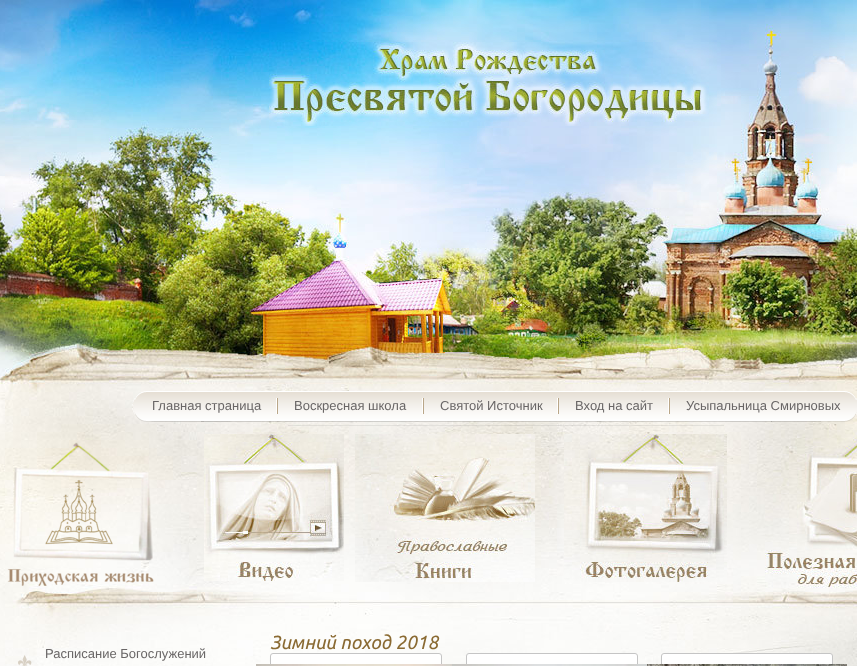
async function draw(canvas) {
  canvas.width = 857;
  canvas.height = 666;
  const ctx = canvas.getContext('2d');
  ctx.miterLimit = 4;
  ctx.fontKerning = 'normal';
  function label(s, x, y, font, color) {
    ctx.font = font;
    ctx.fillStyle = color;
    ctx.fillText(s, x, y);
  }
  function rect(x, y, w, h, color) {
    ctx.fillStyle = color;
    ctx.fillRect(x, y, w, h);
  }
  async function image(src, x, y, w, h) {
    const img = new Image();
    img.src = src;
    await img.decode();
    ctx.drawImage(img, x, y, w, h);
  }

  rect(0, 0, 857, 666, '#fff');
  await image('assets/img1.png', 0, 0, 857, 666);
  await image('assets/img2.png', 269, 42, 452, 84);
  await image('assets/img3.png', 132, 391, 725, 31);
  label('Главная страница', 152, 410, '13px Liberation Sans', '#696666');
  await image('assets/img4.png', 276, 398, 2, 16);
  label('Воскресная школа', 294, 410, '13px Liberation Sans', '#696666');
  await image('assets/img4.png', 422, 398, 2, 16);
  label('Святой Источник', 440, 410, '13px Liberation Sans', '#696666');
  await image('assets/img4.png', 557, 398, 2, 16);
  label('Вход на сайт', 575, 410, '13px Liberation Sans', '#696666');
  await image('assets/img4.png', 668, 398, 2, 16);
  label('Усыпальница Смирновых', 686, 410, '13px Liberation Sans', '#696666');
  rect(288, 425, 436, 1, '#86868626');
  await image('assets/img5.png', 7, 442, 147, 144);
  await image('assets/img6.png', 204, 434, 140, 147);
  await image('assets/img7.png', 355, 434, 180, 148);
  await image('assets/img8.png', 564, 434, 163, 148);
  await image('assets/img9.png', 765, 430, 92, 158);
  label('Зимний поход 2018', 270, 649, 'italic 19px Ubuntu', '#8a6a32');
  ctx.fillStyle = '#fff';
  ctx.beginPath();
  ctx.roundRect(270.5, 653.5, 171, 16, 2.5);
  ctx.fill();
  ctx.strokeStyle = '#c5c5c5';
  ctx.stroke();
  await image('assets/img10.png', 256, 664, 196, 2);
  ctx.beginPath();
  ctx.roundRect(466.5, 653.5, 171, 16, 2.5);
  ctx.fill();
  ctx.stroke();
  await image('assets/img11.png', 452, 664, 195, 2);
  ctx.beginPath();
  ctx.roundRect(661.5, 653.5, 171, 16, 2.5);
  ctx.fill();
  ctx.stroke();
  await image('assets/img12.png', 647, 664, 200, 2);
  await image('assets/img13.png', 18, 655, 14, 11);
  label('Расписание Богослужений', 45, 658, '13px Liberation Sans', '#696666');
}

draw(document.querySelector('canvas'));
